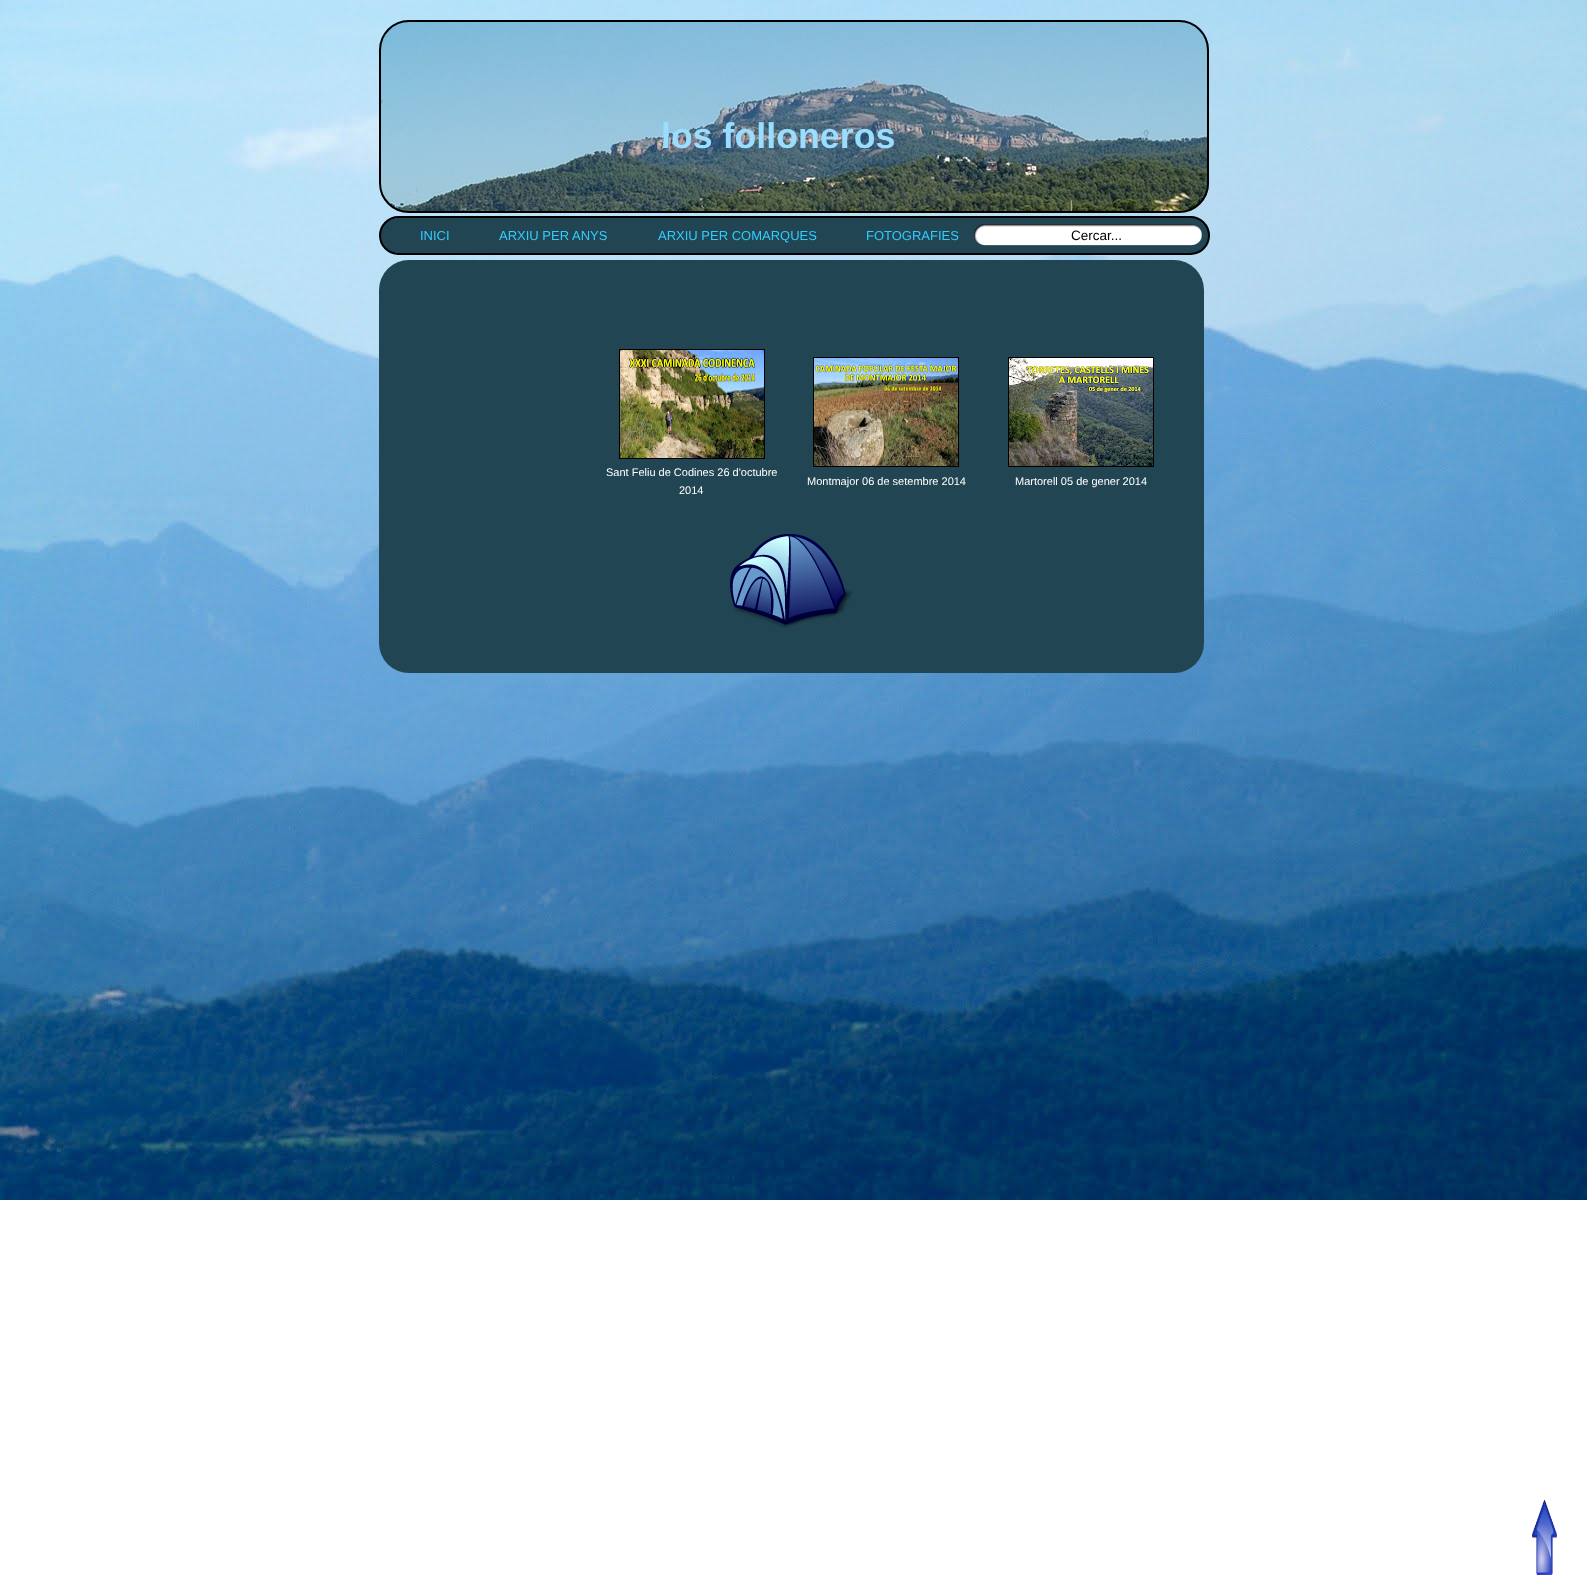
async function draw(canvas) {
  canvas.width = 1587;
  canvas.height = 1585;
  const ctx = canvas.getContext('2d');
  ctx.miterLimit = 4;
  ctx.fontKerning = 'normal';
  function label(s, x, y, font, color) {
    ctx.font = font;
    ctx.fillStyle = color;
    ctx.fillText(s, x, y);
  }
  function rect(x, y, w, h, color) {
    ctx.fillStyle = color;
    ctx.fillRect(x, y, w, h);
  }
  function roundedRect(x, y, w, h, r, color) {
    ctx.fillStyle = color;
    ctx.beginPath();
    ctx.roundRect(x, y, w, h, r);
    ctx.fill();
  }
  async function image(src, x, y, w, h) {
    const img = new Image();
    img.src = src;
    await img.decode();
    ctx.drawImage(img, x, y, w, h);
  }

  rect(0, 0, 1587, 1585, '#fff');
  await image('assets/img1.png', 0, 0, 1587, 1200);
  await image('assets/img2.png', 381, 20, 828, 191);
  ctx.beginPath();
  ctx.roundRect(380, 21, 828, 191, 29);
  ctx.strokeStyle = '#000';
  ctx.lineWidth = 2;
  ctx.stroke();
  label('los folloneros', 661, 148, 'bold 35.75px Liberation Sans', '#9df');
  ctx.fillStyle = '#214552';
  ctx.beginPath();
  ctx.roundRect(380, 217, 829, 37, 18.5);
  ctx.fill();
  ctx.stroke();
  rect(395, 218, 3, 35, '#214552');
  label('INICI', 420, 240, '13px Liberation Sans', '#3cf');
  label('ARXIU PER ANYS', 499, 240, '13px Liberation Sans', '#3cf');
  label('ARXIU PER COMARQUES', 658, 240, '13px Liberation Sans', '#3cf');
  label('FOTOGRAFIES', 866, 240, '13px Liberation Sans', '#3cf');
  await image('assets/img3.png', 974, 224, 228, 22);
  label('Cercar...', 1071, 240, '13.5px Liberation Sans', '#000');
  roundedRect(379, 260, 825, 413, 30, '#214552');
  ctx.lineWidth = 1;
  ctx.strokeRect(619.5, 349.5, 145, 109);
  await image('assets/img4.png', 620, 350, 144, 108);
  label('Sant Feliu de Codines 26 d\'octubre', 606, 476, '11px Liberation Sans', '#fff');
  label('2014', 679, 494, '11px Liberation Sans', '#fff');
  ctx.strokeRect(813.5, 357.5, 145, 109);
  await image('assets/img5.png', 814, 358, 144, 108);
  label('Montmajor 06 de setembre 2014', 807, 485, '11px Liberation Sans', '#fff');
  ctx.strokeRect(1008.5, 357.5, 145, 109);
  await image('assets/img6.png', 1009, 358, 144, 108);
  label('Martorell 05 de gener 2014', 1015, 485, '11px Liberation Sans', '#fff');
  await image('assets/img7.png', 730, 534, 123, 94);
  await image('assets/img8.png', 1532, 1500, 25, 75);
}

draw(document.querySelector('canvas'));
